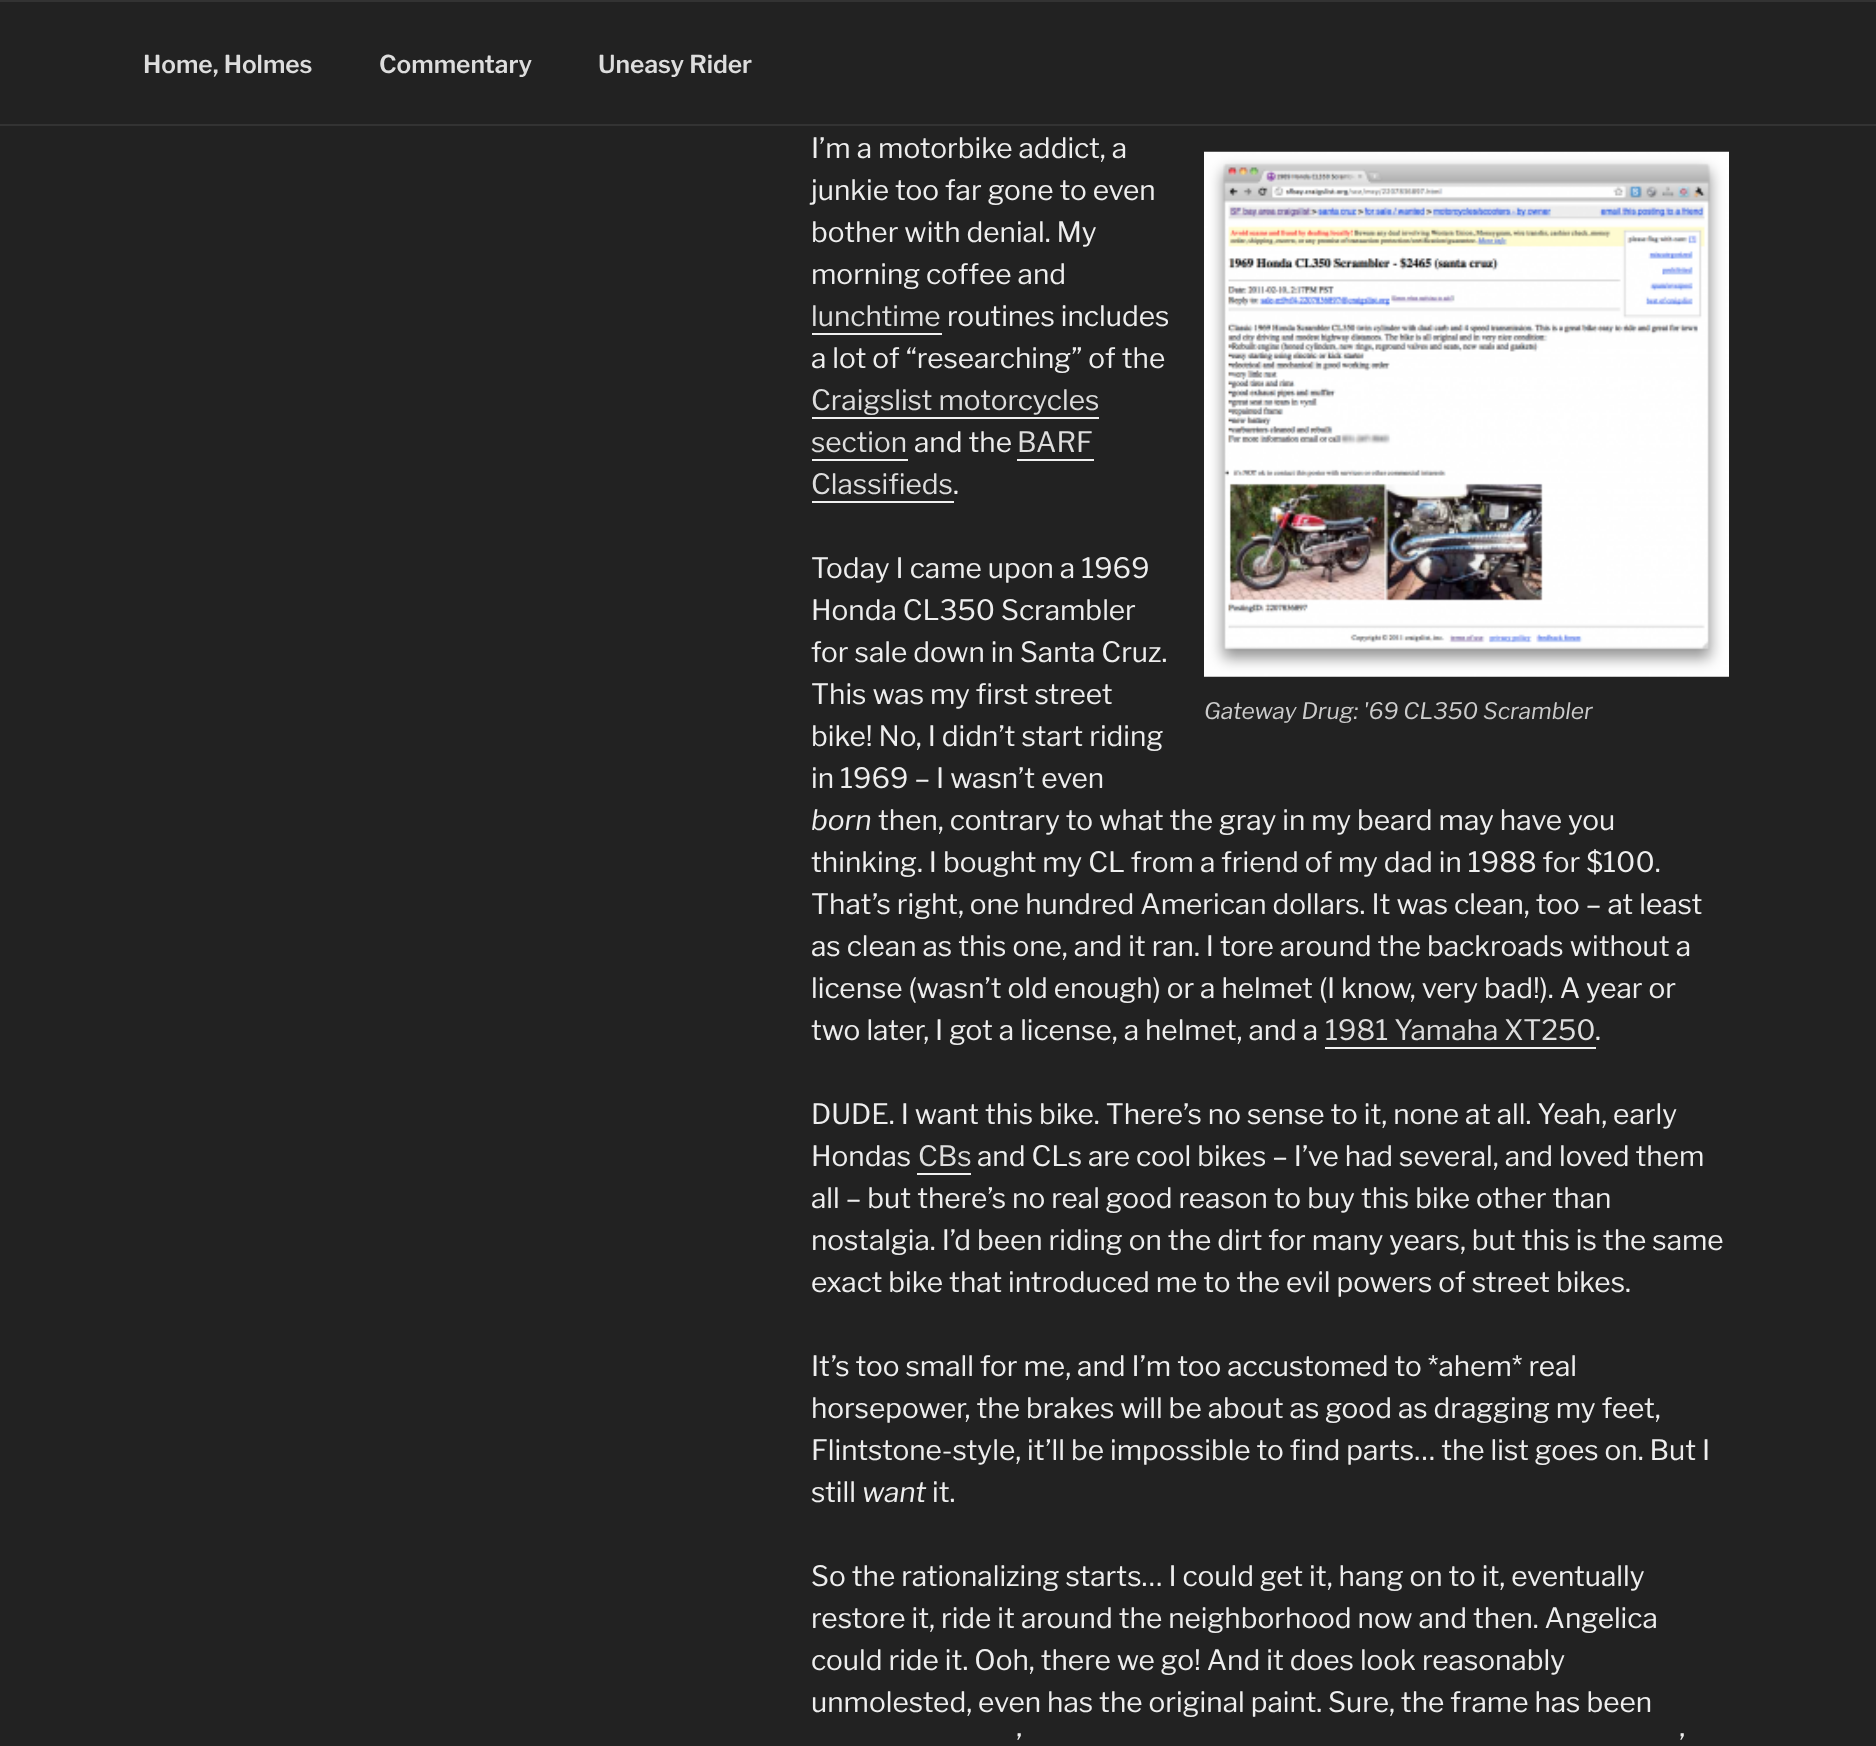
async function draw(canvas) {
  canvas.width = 1876;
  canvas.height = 1746;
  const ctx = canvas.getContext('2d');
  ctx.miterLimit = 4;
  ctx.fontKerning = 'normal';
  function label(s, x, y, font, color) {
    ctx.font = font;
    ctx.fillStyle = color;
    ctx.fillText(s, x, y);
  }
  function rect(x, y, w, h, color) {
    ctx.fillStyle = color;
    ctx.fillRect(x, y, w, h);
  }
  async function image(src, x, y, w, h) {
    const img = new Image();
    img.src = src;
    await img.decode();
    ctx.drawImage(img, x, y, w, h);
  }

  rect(0, 0, 1876, 1746, '#222');
  rect(0, 0, 1876, 2, '#333');
  rect(0, 124, 1876, 2, '#333');
  label('Home, Holmes', 143, 73, '600 24.5px Libre Franklin', '#ddd');
  label('Commentary', 379, 73, '600 24.5px Libre Franklin', '#ddd');
  label('Uneasy Rider', 598, 73, '600 24.5px Libre Franklin', '#ddd');
  label('I’m a motorbike addict, a', 811, 158, '28px Libre Franklin', '#eee');
  label('junkie too far gone to even', 811, 200, '28px Libre Franklin', '#eee');
  label('bother with denial. My', 811, 242, '28px Libre Franklin', '#eee');
  label('morning coffee and', 811, 284, '28px Libre Franklin', '#eee');
  label('lunchtime', 811, 326, '28px Libre Franklin', '#ddd');
  rect(812, 333, 130, 2, '#f0f0f0');
  label('routines includes', 947, 326, '28px Libre Franklin', '#eee');
  label('a lot of “researching” of the', 811, 368, '28px Libre Franklin', '#eee');
  label('Craigslist motorcycles', 811, 410, '28px Libre Franklin', '#ddd');
  rect(812, 417, 287, 2, '#f0f0f0');
  label('section', 811, 452, '28px Libre Franklin', '#ddd');
  rect(812, 459, 96, 2, '#f0f0f0');
  label('and the', 914, 452, '28px Libre Franklin', '#eee');
  label('BARF', 1017, 452, '28px Libre Franklin', '#ddd');
  rect(1017, 459, 77, 2, '#f0f0f0');
  label('Classifieds', 811, 494, '28px Libre Franklin', '#ddd');
  rect(812, 501, 142, 2, '#f0f0f0');
  label('.', 953, 494, '28px Libre Franklin', '#eee');
  label('Today I came upon a 1969', 811, 578, '28px Libre Franklin', '#eee');
  label('Honda CL350 Scrambler', 811, 620, '28px Libre Franklin', '#eee');
  label('for sale down in Santa Cruz.', 811, 662, '28px Libre Franklin', '#eee');
  label('This was my first street', 811, 704, '28px Libre Franklin', '#eee');
  label('bike! No, I didn’t start riding', 811, 746, '28px Libre Franklin', '#eee');
  label('in 1969 – I wasn’t even', 811, 788, '28px Libre Franklin', '#eee');
  label('born', 811, 830, 'italic 28px Libre Franklin', '#eee');
  label('then, contrary to what the gray in my beard may have you', 878, 830, '28px Libre Franklin', '#eee');
  label('thinking. I bought my CL from a friend of my dad in 1988 for $100.', 811, 872, '28px Libre Franklin', '#eee');
  label('That’s right, one hundred American dollars. It was clean, too – at least', 811, 914, '28px Libre Franklin', '#eee');
  label('as clean as this one, and it ran. I tore around the backroads without a', 811, 956, '28px Libre Franklin', '#eee');
  label('license (wasn’t old enough) or a helmet (I know, very bad!). A year or', 811, 998, '28px Libre Franklin', '#eee');
  label('two later, I got a license, a helmet, and a', 811, 1040, '28px Libre Franklin', '#eee');
  label('1981 Yamaha XT250', 1325, 1040, '28px Libre Franklin', '#ddd');
  rect(1325, 1047, 271, 2, '#f0f0f0');
  label('.', 1595, 1040, '28px Libre Franklin', '#eee');
  await image('assets/img1.png', 1204, 151, 525, 526);
  label('Gateway Drug: \'69 CL350 Scrambler', 1204, 719, 'italic 22.75px Libre Franklin', '#ccc');
  label('DUDE. I want this bike. There’s no sense to it, none at all. Yeah, early', 811, 1124, '28px Libre Franklin', '#eee');
  label('Hondas', 811, 1166, '28px Libre Franklin', '#eee');
  label('CBs', 918, 1166, '28px Libre Franklin', '#ddd');
  rect(917, 1173, 54, 2, '#f0f0f0');
  label('and CLs are cool bikes – I’ve had several, and loved them', 977, 1166, '28px Libre Franklin', '#eee');
  label('all – but there’s no real good reason to buy this bike other than', 811, 1208, '28px Libre Franklin', '#eee');
  label('nostalgia. I’d been riding on the dirt for many years, but this is the same', 811, 1250, '28px Libre Franklin', '#eee');
  label('exact bike that introduced me to the evil powers of street bikes.', 811, 1292, '28px Libre Franklin', '#eee');
  label('It’s too small for me, and I’m too accustomed to *ahem* real', 811, 1376, '28px Libre Franklin', '#eee');
  label('horsepower, the brakes will be about as good as dragging my feet,', 811, 1418, '28px Libre Franklin', '#eee');
  label('Flintstone-style, it’ll be impossible to find parts… the list goes on. But I', 811, 1460, '28px Libre Franklin', '#eee');
  label('still', 811, 1502, '28px Libre Franklin', '#eee');
  label('want', 862, 1502, 'italic 28px Libre Franklin', '#eee');
  label('it.', 932, 1502, '28px Libre Franklin', '#eee');
  label('So the rationalizing starts… I could get it, hang on to it, eventually', 811, 1586, '28px Libre Franklin', '#eee');
  label('restore it, ride it around the neighborhood now and then. Angelica', 811, 1628, '28px Libre Franklin', '#eee');
  label('could ride it. Ooh, there we go! And it does look reasonably', 811, 1670, '28px Libre Franklin', '#eee');
  label('unmolested, even has the original paint. Sure, the frame has been', 811, 1712, '28px Libre Franklin', '#eee');
  label('’', 1016, 1754, '28px Libre Franklin', '#eee');
  label('’', 1679, 1754, '28px Libre Franklin', '#eee');
}

draw(document.querySelector('canvas'));
